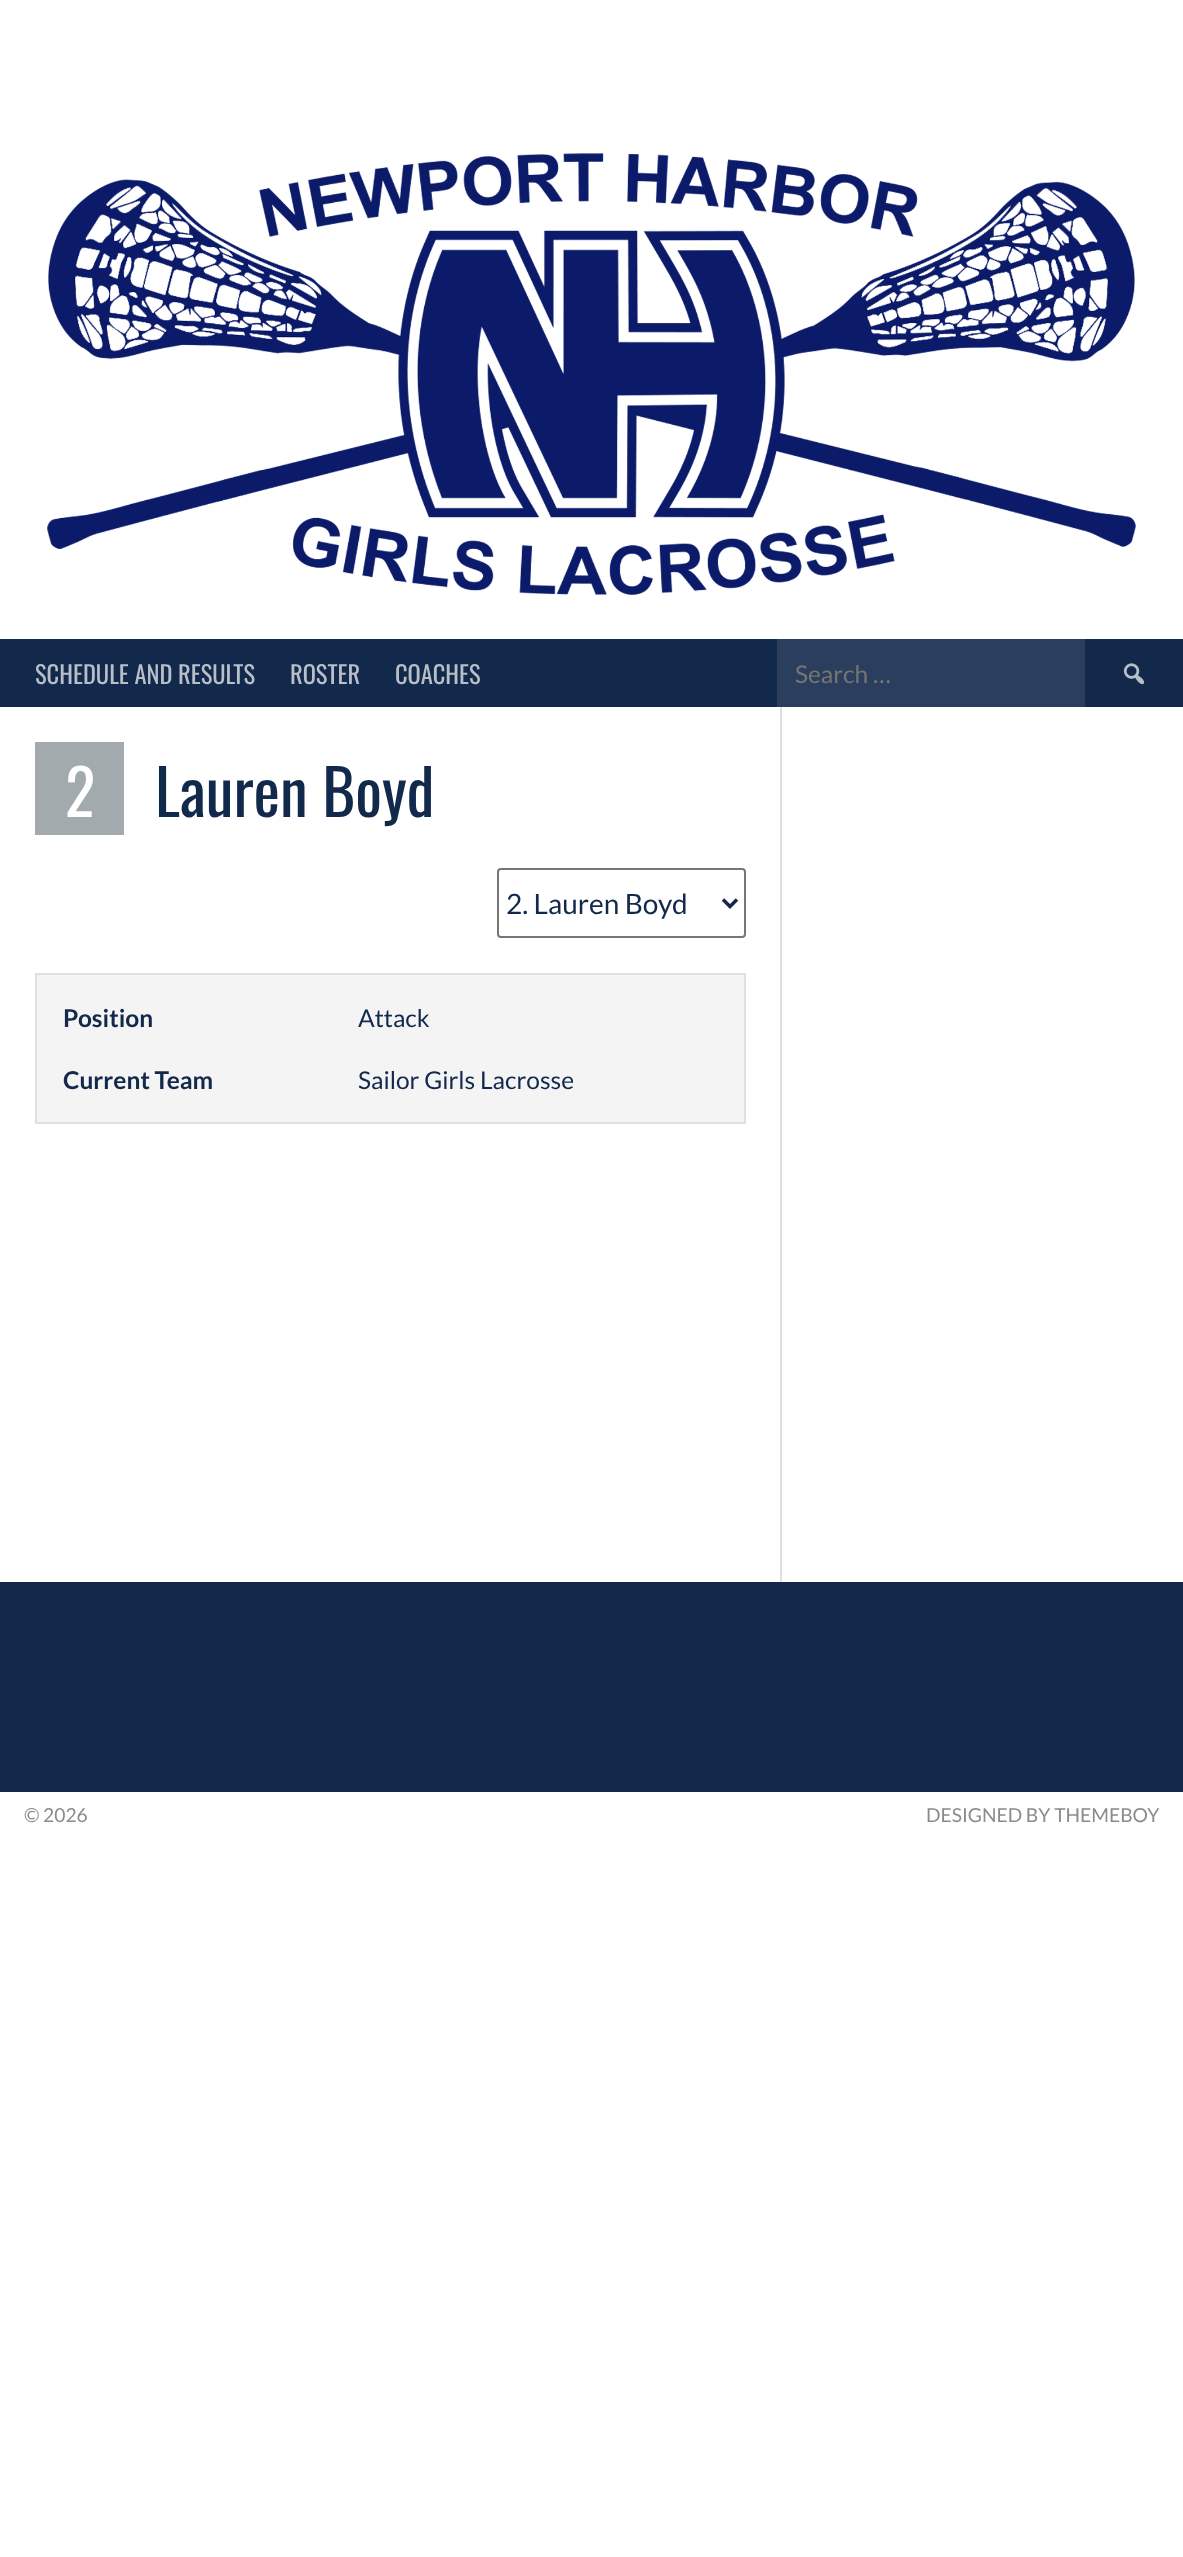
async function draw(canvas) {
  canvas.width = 1183;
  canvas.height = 2557;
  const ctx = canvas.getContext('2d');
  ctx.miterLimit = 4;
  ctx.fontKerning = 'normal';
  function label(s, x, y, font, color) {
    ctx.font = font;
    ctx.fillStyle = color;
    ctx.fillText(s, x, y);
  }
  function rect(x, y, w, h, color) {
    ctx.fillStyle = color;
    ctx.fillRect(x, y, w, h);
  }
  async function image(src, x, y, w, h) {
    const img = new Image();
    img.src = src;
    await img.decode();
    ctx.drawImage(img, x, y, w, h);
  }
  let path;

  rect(0, 0, 1183, 2557, '#fff');
  await image('assets/img1.png', 47, 153, 1089, 442);
  rect(0, 639, 1183, 68, '#13294b');
  label('SCHEDULE AND RESULTS', 35, 684, '24.5px Oswald', '#b8bfc9');
  label('ROSTER', 290, 684, '24.5px Oswald', '#b8bfc9');
  label('COACHES', 395, 684, '24.5px Oswald', '#b8bfc9');
  rect(777, 639, 308, 68, '#2b3e5d');
  label('Search …', 795, 683, '24.5px Lato', '#757575');
  await image('assets/img2.png', 1123, 663, 22, 22);
  rect(780, 707, 2, 875, '#e0e0e0');
  rect(35, 742, 89, 93, '#a2aaad');
  label('2', 65, 817, '63px Oswald', '#fff');
  label('Lauren Boyd', 155, 817, '63px Oswald', '#13294b');
  ctx.beginPath();
  ctx.roundRect(498, 869, 247, 68, 3);
  ctx.strokeStyle = '#767676';
  ctx.lineWidth = 2;
  ctx.stroke();
  path = new Path2D('M723 899.5L730 906.5L737 899.5');
  ctx.strokeStyle = '#13294b';
  ctx.lineWidth = 3.5;
  ctx.stroke(path);
  label('2. Lauren Boyd', 506, 914, '28px Lato', '#13294b');
  ctx.fillStyle = '#f4f4f4';
  ctx.beginPath();
  ctx.rect(36, 974, 709, 149);
  ctx.fill();
  ctx.strokeStyle = '#e0e0e0';
  ctx.lineWidth = 2;
  ctx.stroke();
  label('Position', 63, 1027, 'bold 24.5px Lato', '#13294b');
  label('Attack', 358, 1027, '24.5px Lato', '#13294b');
  label('Current Team', 63, 1089, 'bold 24.5px Lato', '#13294b');
  label('Sailor Girls Lacrosse', 358, 1089, '24.5px Lato', '#13294b');
  rect(0, 1582, 1183, 210, '#13294b');
  label('© 2026', 24, 1822, '19.25px Lato', '#8b8b8b');
  label('DESIGNED BY THEMEBOY', 926, 1822, '19.25px Lato', '#8b8b8b');
}

draw(document.querySelector('canvas'));
